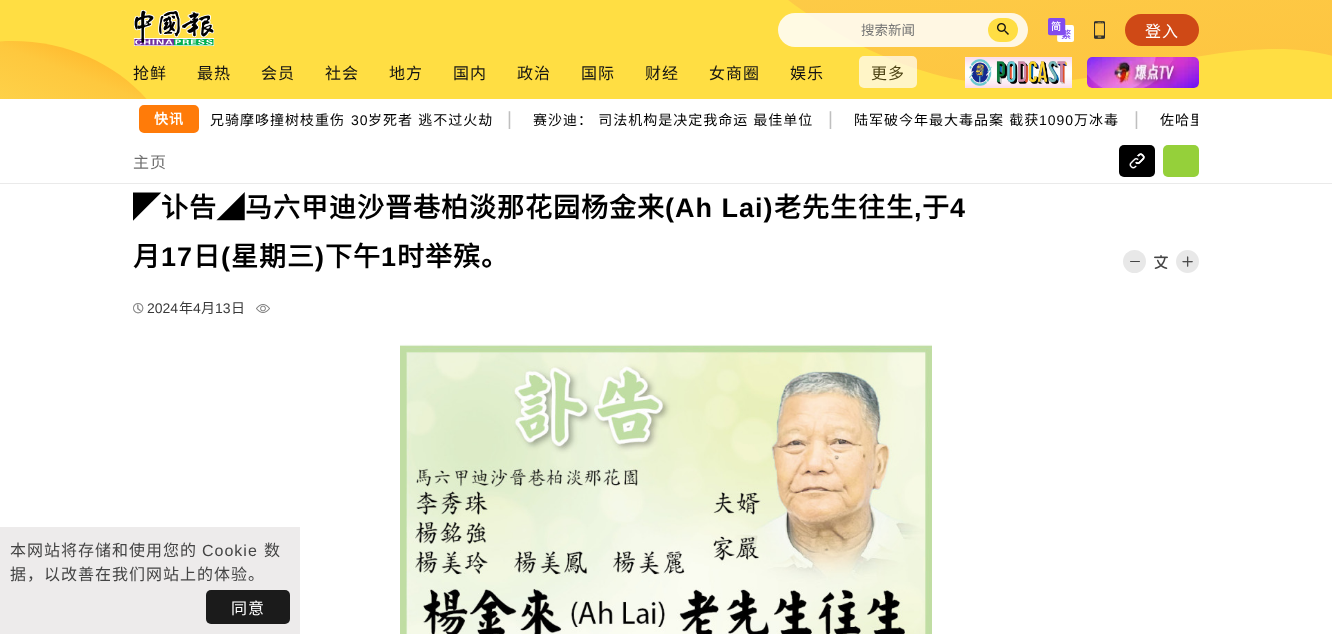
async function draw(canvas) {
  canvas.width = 1332;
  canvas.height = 634;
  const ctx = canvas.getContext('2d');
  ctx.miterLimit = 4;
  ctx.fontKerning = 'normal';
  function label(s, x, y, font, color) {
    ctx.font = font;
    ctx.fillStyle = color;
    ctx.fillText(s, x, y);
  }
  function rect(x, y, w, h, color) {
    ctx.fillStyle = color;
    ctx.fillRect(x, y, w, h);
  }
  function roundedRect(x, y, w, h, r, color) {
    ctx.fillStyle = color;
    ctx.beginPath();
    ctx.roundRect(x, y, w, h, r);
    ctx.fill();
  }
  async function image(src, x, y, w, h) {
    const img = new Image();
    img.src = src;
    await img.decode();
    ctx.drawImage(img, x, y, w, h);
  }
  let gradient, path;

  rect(0, 0, 1332, 634, '#fff');
  rect(0, 0, 1332, 99, '#ffde43');
  ctx.save();
  ctx.beginPath();
  ctx.rect(0, 41, 181, 58);
  ctx.clip();
  gradient = ctx.createLinearGradient(98, 61, 61, 157);
  gradient.addColorStop(0, '#ffbd32');
  gradient.addColorStop(0.2, '#fec83e');
  gradient.addColorStop(1, '#fdd74f');
  ctx.fillStyle = gradient;
  path = new Path2D('M12 41C-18 41-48 49-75 62V167H181C167 96 97 41 12 41');
  ctx.fill(path);
  ctx.restore();
  gradient = ctx.createLinearGradient(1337, 258, 1265, -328);
  gradient.addColorStop(0, '#ffb42d');
  gradient.addColorStop(0.2, '#fec23d');
  gradient.addColorStop(1, '#fcd552');
  ctx.fillStyle = gradient;
  path = new Path2D('M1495 104H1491C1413 102 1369 49 1277 49C1183 49 1121 84 1004 84C886 84 778-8 778-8V-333H787H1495Z');
  ctx.fill(path);
  await image('assets/img1.png', 133, 10, 82, 36);
  roundedRect(778, 13, 250, 34, 17, '#ffffffd9');
  label('搜索新闻', 861, 35, '13.5px Noto Sans CJK SC', '#757575');
  roundedRect(988, 18, 30, 24, 12, '#ffde43');
  await image('assets/img2.png', 997, 23, 12, 12);
  await image('assets/img3.png', 1048, 18, 26, 24);
  await image('assets/img4.png', 1094, 21, 11, 18);
  roundedRect(1125, 14, 74, 32, 16, '#cf4916');
  ctx.letterSpacing = '1px';
  label('登入', 1145, 37, '16px Noto Sans CJK SC', '#fff');
  label('抢鲜', 133, 79, '16px Noto Sans CJK SC', '#131313');
  label('最热', 197, 79, '16px Noto Sans CJK SC', '#131313');
  label('会员', 261, 79, '16px Noto Sans CJK SC', '#131313');
  label('社会', 325, 79, '16px Noto Sans CJK SC', '#131313');
  label('地方', 389, 79, '16px Noto Sans CJK SC', '#131313');
  label('国内', 453, 79, '16px Noto Sans CJK SC', '#131313');
  label('政治', 517, 79, '16px Noto Sans CJK SC', '#131313');
  label('国际', 581, 79, '16px Noto Sans CJK SC', '#131313');
  label('财经', 645, 79, '16px Noto Sans CJK SC', '#131313');
  label('女商圈', 709, 79, '16px Noto Sans CJK SC', '#131313');
  label('娱乐', 790, 79, '16px Noto Sans CJK SC', '#131313');
  roundedRect(859, 56, 58, 32, 5, '#ffffffb3');
  label('更多', 871, 79, '16px Noto Sans CJK SC', '#4d4314');
  await image('assets/img5.png', 965, 57, 107, 31);
  await image('assets/img6.png', 1087, 57, 112, 31);
  ctx.fillStyle = '#ff7b09';
  ctx.beginPath();
  ctx.roundRect(136.5, 102.5, 65, 33, 7.5);
  ctx.fill();
  ctx.strokeStyle = '#fff';
  ctx.lineWidth = 5;
  ctx.stroke();
  label('快讯', 154, 124, 'bold 14px Noto Sans CJK SC', '#fff');
  label('兄骑摩哆撞树枝重伤', 210, 125, '14px Noto Sans CJK SC', '#000');
  label('30', 351, 125, '14px Liberation Sans', '#000');
  ctx.wordSpacing = '1px';
  label('岁死者 逃不过火劫', 368, 125, '14px Noto Sans CJK SC', '#000');
  ctx.wordSpacing = '0px';
  label('|', 507, 125, '19px Liberation Sans', '#bfbfbf');
  ctx.wordSpacing = '1px';
  label('赛沙迪： 司法机构是决定我命运 最佳单位', 533, 125, '14px Noto Sans CJK SC', '#000');
  ctx.wordSpacing = '0px';
  label('|', 828, 125, '19px Liberation Sans', '#bfbfbf');
  ctx.wordSpacing = '1px';
  label('陆军破今年最大毒品案 截获', 854, 125, '14px Noto Sans CJK SC', '#000');
  ctx.wordSpacing = '0px';
  label('1090', 1039, 125, '14px Liberation Sans', '#000');
  label('万冰毒', 1074, 125, '14px Noto Sans CJK SC', '#000');
  label('|', 1134, 125, '19px Liberation Sans', '#bfbfbf');
  ctx.save();
  ctx.beginPath();
  ctx.rect(1150, 100, 48, 38);
  ctx.clip();
  ctx.wordSpacing = '1px';
  label('佐哈里', 1160, 125, '14px Noto Sans CJK SC', '#000');
  ctx.restore();
  rect(0, 183, 1332, 1, '#eaeaea');
  label('主页', 133, 168, '16px Noto Sans CJK SC', '#6f6f6f');
  roundedRect(1119, 145, 36, 32, 5, '#000');
  await image('assets/img7.png', 1129, 153, 16, 16);
  roundedRect(1163, 145, 36, 32, 5, '#95d03a');
  label('◤讣告◢马六甲迪沙晋巷柏淡那花园杨金来', 133, 217, 'bold 27px Noto Sans CJK SC', '#000');
  label('(Ah Lai)', 665, 217, 'bold 27px Liberation Sans', '#000');
  label('老先生往生', 774, 217, 'bold 27px Noto Sans CJK SC', '#000');
  label(',', 914, 217, 'bold 27px Liberation Sans', '#000');
  label('于', 922, 217, 'bold 27px Noto Sans CJK SC', '#000');
  label('4', 950, 217, 'bold 27px Liberation Sans', '#000');
  label('月', 133, 266, 'bold 27px Noto Sans CJK SC', '#000');
  label('17', 161, 266, 'bold 27px Liberation Sans', '#000');
  label('日', 193, 266, 'bold 27px Noto Sans CJK SC', '#000');
  label('(', 221, 266, 'bold 27px Liberation Sans', '#000');
  label('星期三', 231, 266, 'bold 27px Noto Sans CJK SC', '#000');
  label(')', 315, 266, 'bold 27px Liberation Sans', '#000');
  label('下午', 325, 266, 'bold 27px Noto Sans CJK SC', '#000');
  label('1', 381, 266, 'bold 27px Liberation Sans', '#000');
  label('时举殡。', 397, 266, 'bold 27px Noto Sans CJK SC', '#000');
  ctx.fillStyle = '#e8e8e8';
  ctx.beginPath();
  ctx.arc(1134.5, 261.5, 11.5, 0, 2 * Math.PI);
  ctx.fill();
  roundedRect(1130, 261, 10, 1, 0.5, '#444');
  await image('assets/img8.png', 1154, 255, 14, 14);
  await image('assets/img9.png', 1176, 250, 23, 23);
  await image('assets/img10.png', 133, 303, 11, 11);
  ctx.letterSpacing = '0px';
  label('2024', 147, 313, '14px Liberation Sans', '#3a3a3a');
  label('年', 179, 313, '14px Noto Sans CJK SC', '#3a3a3a');
  label('4', 193, 313, '14px Liberation Sans', '#3a3a3a');
  label('月', 201, 313, '14px Noto Sans CJK SC', '#3a3a3a');
  label('13', 215, 313, '14px Liberation Sans', '#3a3a3a');
  label('日', 231, 313, '14px Noto Sans CJK SC', '#3a3a3a');
  await image('assets/img11.png', 256, 304, 14, 9);
  await image('assets/img12.png', 400, 344, 532, 290);
  rect(0, 527, 300, 107, '#edebeb');
  ctx.letterSpacing = '1px';
  label('本网站将存储和使用您的', 10, 556, '16px Noto Sans CJK SC', '#444');
  label('Cookie', 202, 556, '16px Liberation Sans', '#444');
  label('数', 264, 556, '16px Noto Sans CJK SC', '#444');
  label('据，以改善在我们网站上的体验。', 10, 580, '16px Noto Sans CJK SC', '#444');
  roundedRect(206, 590, 84, 34, 5, '#1b1b1b');
  label('同意', 231, 614, '16px Noto Sans CJK SC', '#fff');
}

draw(document.querySelector('canvas'));
